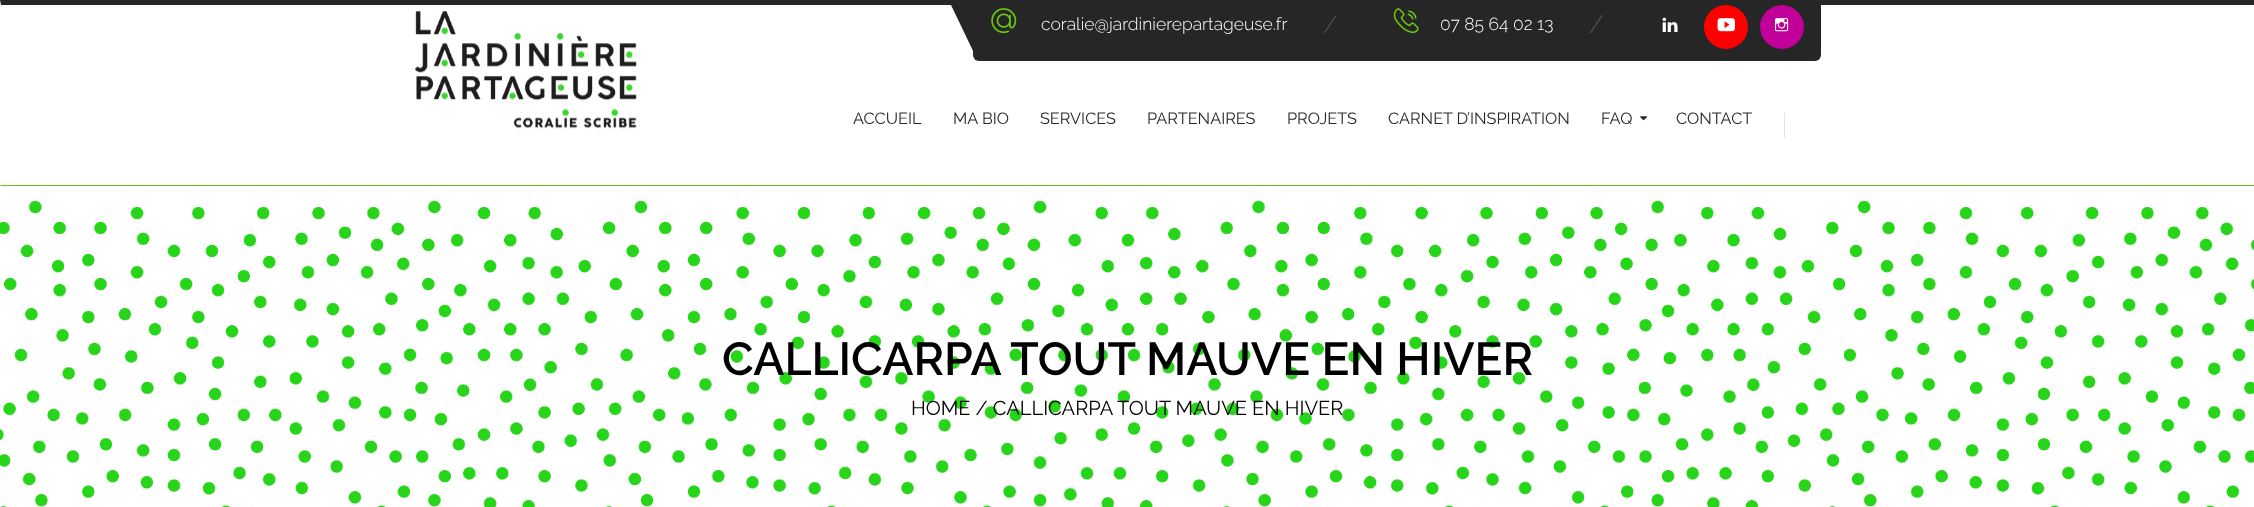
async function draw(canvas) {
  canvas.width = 2254;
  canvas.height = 507;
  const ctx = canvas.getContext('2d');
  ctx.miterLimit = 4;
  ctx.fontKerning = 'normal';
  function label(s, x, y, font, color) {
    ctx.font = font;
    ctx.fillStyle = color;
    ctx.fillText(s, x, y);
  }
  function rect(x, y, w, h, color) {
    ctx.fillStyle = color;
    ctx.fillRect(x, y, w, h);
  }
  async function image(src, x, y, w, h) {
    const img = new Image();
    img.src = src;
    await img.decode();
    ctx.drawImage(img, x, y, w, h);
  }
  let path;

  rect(0, 0, 2254, 507, '#fff');
  ctx.fillStyle = '#262626';
  path = new Path2D('M0 0H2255L2254 5H1Z');
  ctx.fill(path);
  ctx.beginPath();
  ctx.roundRect(973, 5, 848, 56, [0, 0, 6, 6]);
  ctx.fill();
  path = new Path2D('M951 5H975V55Z');
  ctx.fill(path);
  await image('assets/img1.png', 991, 8, 26, 26);
  label('coralie@jardinierepartageuse.fr', 1041, 30, '300 17.5px Raleway', '#fff');
  label('/', 1323, 33, '300 25px Raleway', '#505050');
  await image('assets/img2.png', 1393, 8, 26, 26);
  label('07 85 64 02 13', 1440, 30, '300 17.5px Raleway', '#fff');
  label('/', 1589, 33, '300 25px Raleway', '#505050');
  await image('assets/img3.png', 1662, 17, 16, 15);
  ctx.fillStyle = '#f00';
  ctx.beginPath();
  ctx.arc(1726, 27, 22, 0, 2 * Math.PI);
  ctx.fill();
  await image('assets/img4.png', 1717, 18, 18, 14);
  ctx.fillStyle = '#c10099';
  ctx.beginPath();
  ctx.arc(1782, 27, 22, 0, 2 * Math.PI);
  ctx.fill();
  await image('assets/img5.png', 1775, 18, 14, 14);
  ctx.fillStyle = '#6ac610';
  path = new Path2D('M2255 186H0L1 185H2254Z');
  ctx.fill(path);
  await image('assets/img6.png', 415, 11, 222, 118);
  label('ACCUEIL', 853, 124, '16.25px Raleway', '#272727');
  label('MA BIO', 953, 124, '16.25px Raleway', '#272727');
  label('SERVICES', 1040, 124, '16.25px Raleway', '#272727');
  label('PARTENAIRES', 1147, 124, '16.25px Raleway', '#272727');
  label('PROJETS', 1287, 124, '16.25px Raleway', '#272727');
  label('CARNET D’INSPIRATION', 1388, 124, '16.25px Raleway', '#272727');
  label('FAQ', 1601, 124, '16.25px Raleway', '#272727');
  await image('assets/img7.png', 1640, 116, 8, 5);
  label('CONTACT', 1676, 124, '16.25px Raleway', '#272727');
  rect(1784, 113, 1, 25, '#e4e4e4');
  await image('assets/img8.png', 0, 186, 2254, 321);
  label('CALLICARPA TOUT MAUVE EN HIVER', 722, 375, '600 46.25px Raleway', '#000');
  label('HOME / CALLICARPA TOUT MAUVE EN HIVER', 911, 415, '20px Raleway', '#000');
}

draw(document.querySelector('canvas'));
